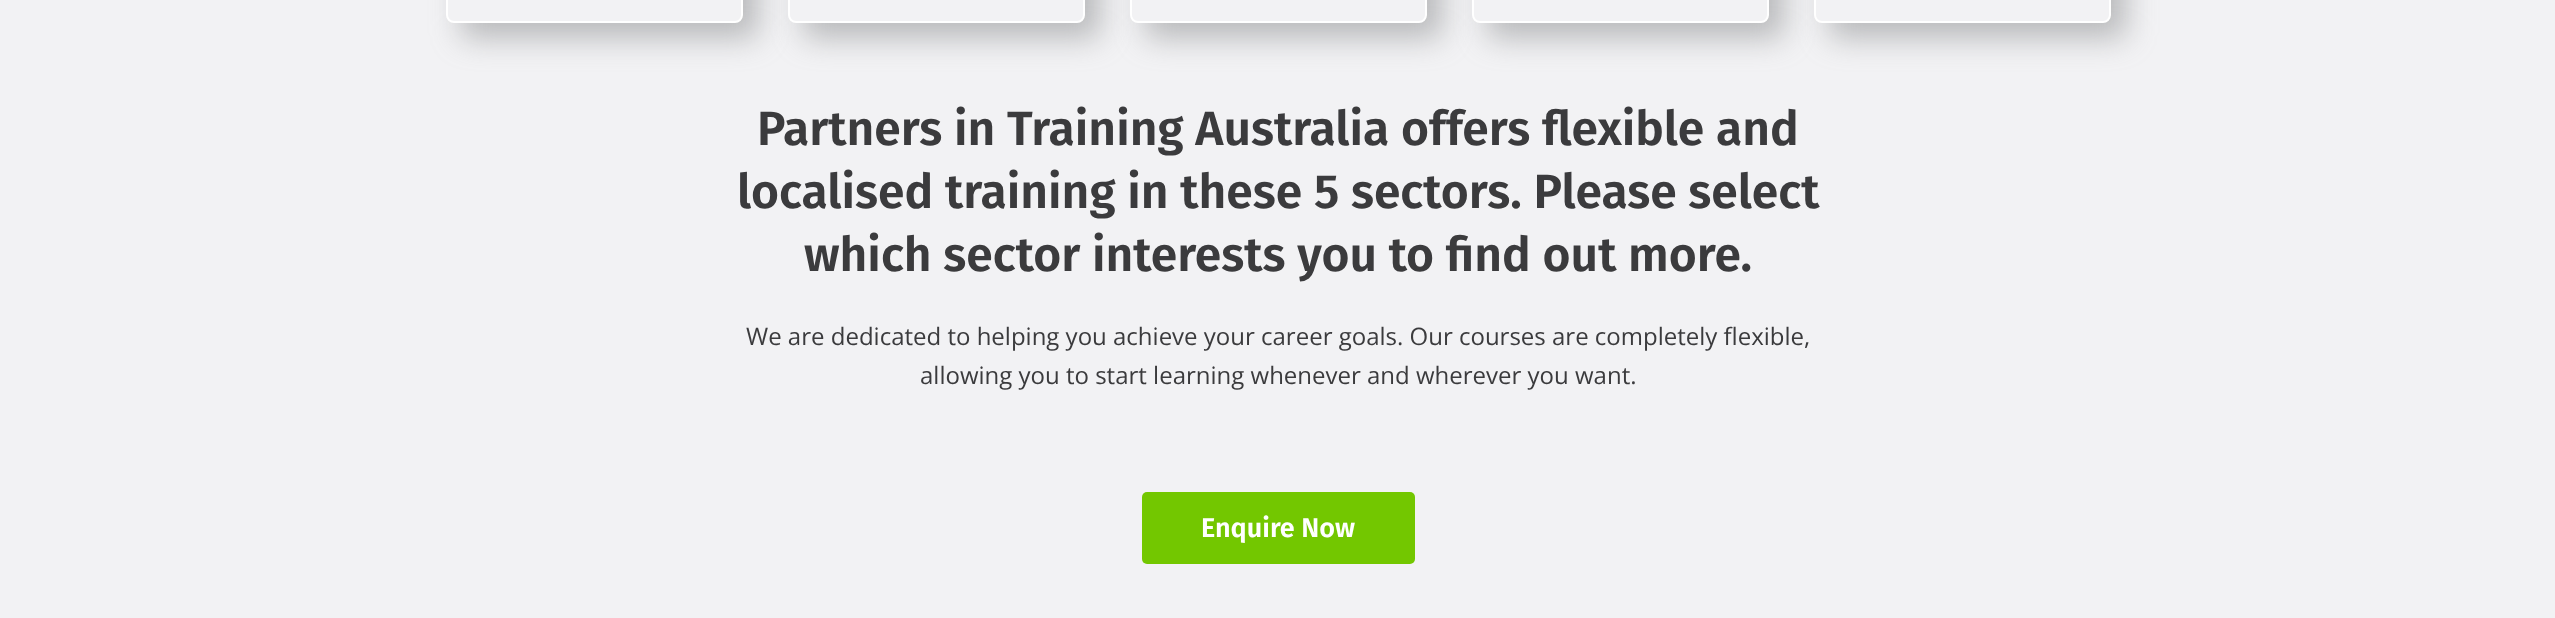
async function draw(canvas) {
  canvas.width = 2555;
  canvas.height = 618;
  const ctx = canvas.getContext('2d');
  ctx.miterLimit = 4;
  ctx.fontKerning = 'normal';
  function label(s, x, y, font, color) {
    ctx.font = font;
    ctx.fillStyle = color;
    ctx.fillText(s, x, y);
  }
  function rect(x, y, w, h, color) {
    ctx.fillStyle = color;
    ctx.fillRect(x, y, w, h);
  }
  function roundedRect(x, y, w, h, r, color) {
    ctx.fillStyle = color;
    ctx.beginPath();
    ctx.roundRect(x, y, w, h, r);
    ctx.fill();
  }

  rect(0, 0, 2555, 618, '#f2f2f4');
  ctx.fillStyle = '#80818480';
  ctx.filter = 'blur(15px)';
  ctx.beginPath();
  ctx.roundRect(461, -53, 297, 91, 8);
  ctx.fill();
  ctx.filter = 'none';
  ctx.fillStyle = '#f2f2f4';
  ctx.beginPath();
  ctx.roundRect(447, -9, 295, 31, 7);
  ctx.fill();
  ctx.strokeStyle = '#fff';
  ctx.lineWidth = 2;
  ctx.stroke();
  ctx.fillStyle = '#80818480';
  ctx.filter = 'blur(15px)';
  ctx.beginPath();
  ctx.roundRect(803, -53, 297, 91, 8);
  ctx.fill();
  ctx.filter = 'none';
  ctx.fillStyle = '#f2f2f4';
  ctx.beginPath();
  ctx.roundRect(789, -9, 295, 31, 7);
  ctx.fill();
  ctx.stroke();
  ctx.fillStyle = '#80818480';
  ctx.filter = 'blur(15px)';
  ctx.beginPath();
  ctx.roundRect(1145, -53, 297, 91, 8);
  ctx.fill();
  ctx.filter = 'none';
  ctx.fillStyle = '#f2f2f4';
  ctx.beginPath();
  ctx.roundRect(1131, -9, 295, 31, 7);
  ctx.fill();
  ctx.stroke();
  ctx.fillStyle = '#80818480';
  ctx.filter = 'blur(15px)';
  ctx.beginPath();
  ctx.roundRect(1487, -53, 297, 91, 8);
  ctx.fill();
  ctx.filter = 'none';
  ctx.fillStyle = '#f2f2f4';
  ctx.beginPath();
  ctx.roundRect(1473, -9, 295, 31, 7);
  ctx.fill();
  ctx.stroke();
  ctx.fillStyle = '#80818480';
  ctx.filter = 'blur(15px)';
  ctx.beginPath();
  ctx.roundRect(1829, -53, 297, 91, 8);
  ctx.fill();
  ctx.filter = 'none';
  ctx.fillStyle = '#f2f2f4';
  ctx.beginPath();
  ctx.roundRect(1815, -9, 295, 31, 7);
  ctx.fill();
  ctx.stroke();
  label('Partners in Training Australia offers flexible and', 757, 145, '600 48px Fira Sans', '#3b3b3d');
  label('localised training in these 5 sectors. Please select', 737, 208, '600 48px Fira Sans', '#3b3b3d');
  label('which sector interests you to find out more.', 804, 271, '600 48px Fira Sans', '#3b3b3d');
  label('We are dedicated to helping you achieve your career goals. Our courses are completely flexible,', 746, 345, '24px Open Sans', '#3b3b3d');
  label('allowing you to start learning whenever and wherever you want.', 920, 384, '24px Open Sans', '#3b3b3d');
  roundedRect(1142, 492, 273, 72, 5, '#73c700');
  label('Enquire Now', 1201, 537, '600 27px Fira Sans', '#fff');
}

draw(document.querySelector('canvas'));
